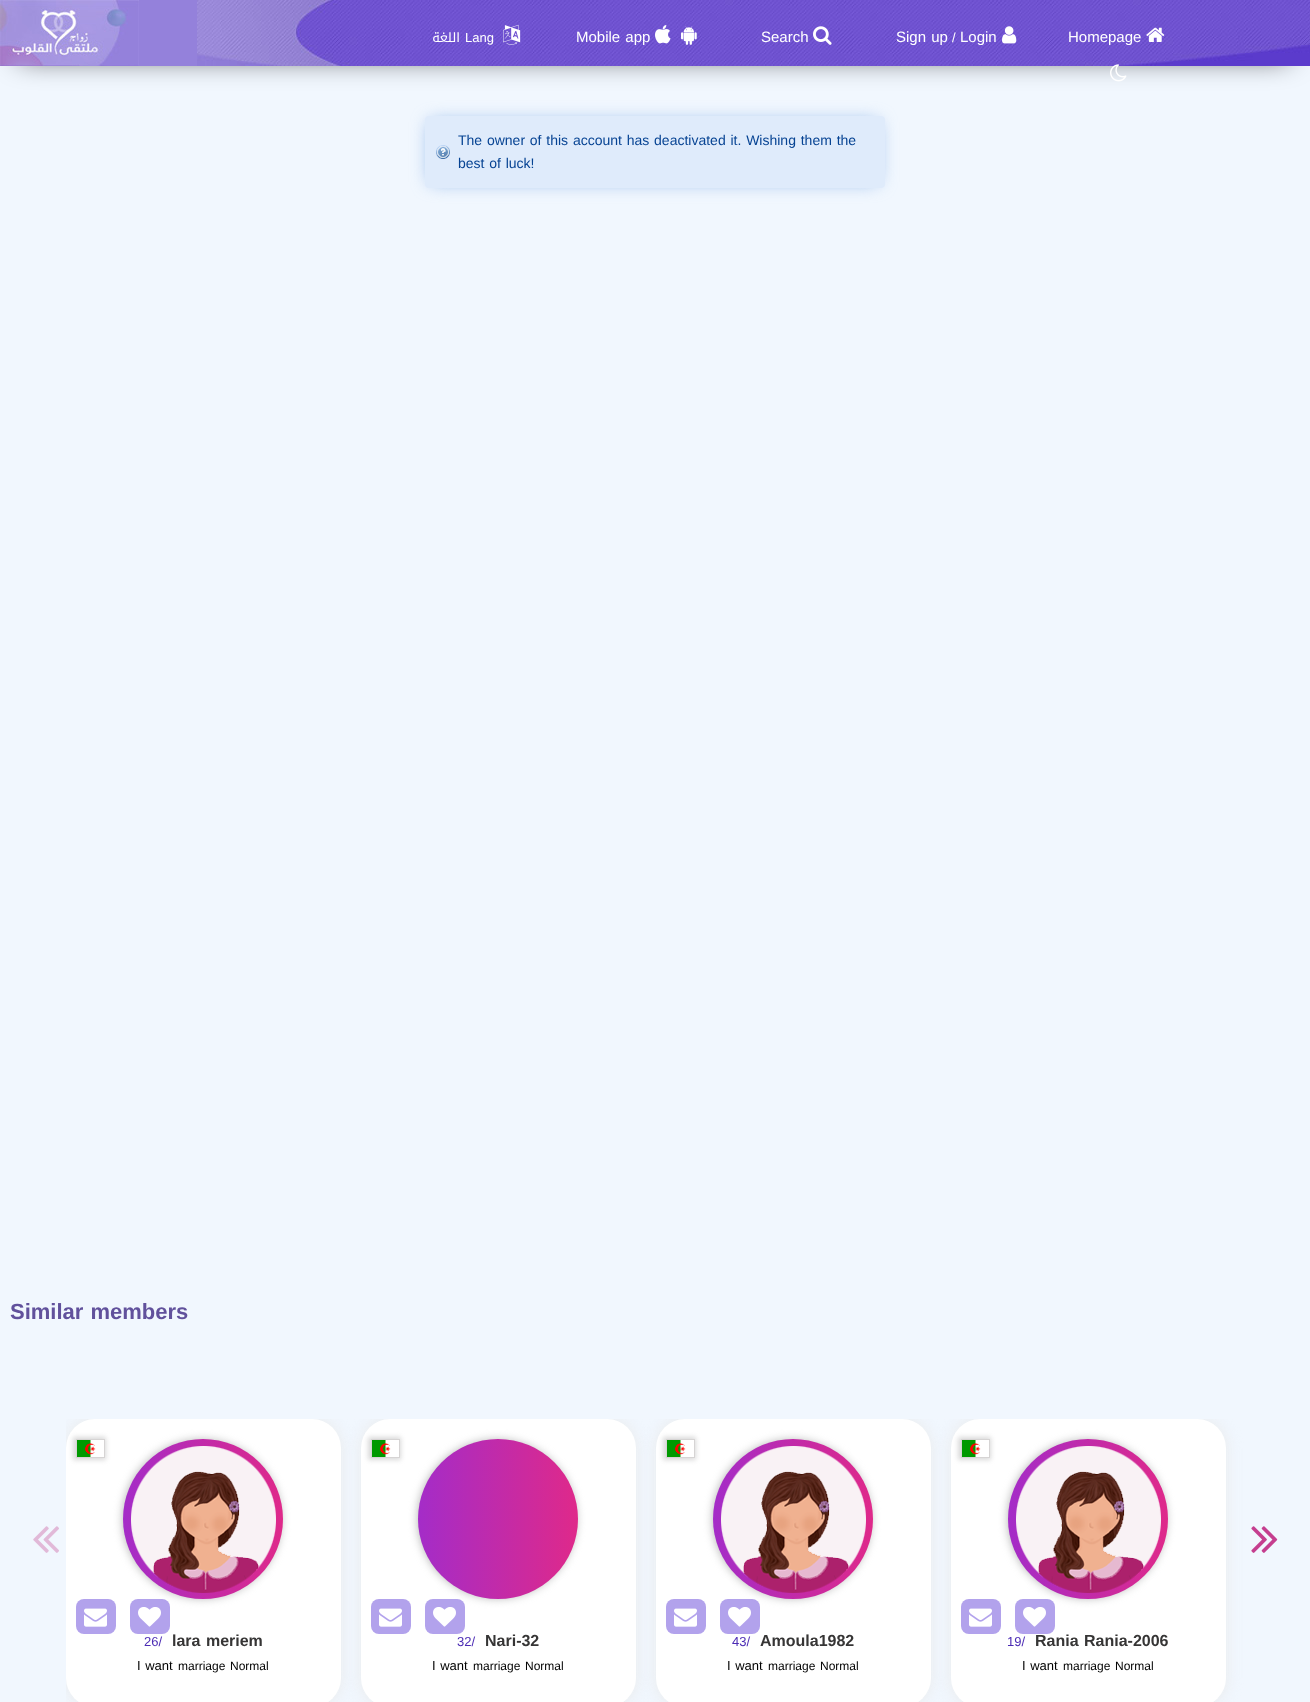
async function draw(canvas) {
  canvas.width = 1310;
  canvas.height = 1702;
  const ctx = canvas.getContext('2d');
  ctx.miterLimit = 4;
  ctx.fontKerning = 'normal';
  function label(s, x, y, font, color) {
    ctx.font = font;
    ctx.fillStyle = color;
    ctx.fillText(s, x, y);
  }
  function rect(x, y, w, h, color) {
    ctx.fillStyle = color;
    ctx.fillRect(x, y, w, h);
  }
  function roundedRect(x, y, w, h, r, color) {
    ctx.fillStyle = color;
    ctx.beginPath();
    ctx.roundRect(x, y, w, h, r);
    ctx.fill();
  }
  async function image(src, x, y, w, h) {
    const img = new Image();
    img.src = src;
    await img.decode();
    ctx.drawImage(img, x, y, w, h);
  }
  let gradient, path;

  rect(0, 0, 1310, 1702, '#f1f7fe');
  ctx.fillStyle = '#000000bf';
  ctx.filter = 'blur(14.5px)';
  ctx.beginPath();
  ctx.rect(19, 31, 1270, 26);
  ctx.fill();
  ctx.filter = 'none';
  rect(139, 0, 58, 66, '#9481db');
  await image('assets/img1.png', 0, 0, 139, 66);
  await image('assets/img2.png', 197, 0, 1113, 66);
  ctx.direction = 'rtl';
  label('اللغة', 460, 42, '13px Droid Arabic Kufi', '#fff');
  ctx.direction = 'ltr';
  label('Lang', 465, 42, '13px Liberation Sans', '#fff');
  await image('assets/img3.png', 503, 24, 18, 21);
  ctx.wordSpacing = '1px';
  label('Mobile app', 576, 42, '15px Liberation Sans', '#fff');
  await image('assets/img4.png', 655, 24, 16, 20);
  await image('assets/img5.png', 681, 26, 16, 19);
  ctx.wordSpacing = '0px';
  label('Search', 761, 42, '15px Liberation Sans', '#fff');
  await image('assets/img6.png', 813, 26, 19, 19);
  ctx.wordSpacing = '1px';
  label('Sign up', 896, 42, '15px Liberation Sans', '#fff');
  ctx.wordSpacing = '0px';
  label('/', 952, 42, '13px Liberation Sans', '#fff');
  label('Login', 960, 42, '15px Liberation Sans', '#fff');
  await image('assets/img7.png', 1002, 26, 15, 18);
  label('Homepage', 1068, 42, '15px Liberation Sans', '#fff');
  await image('assets/img8.png', 1146, 27, 19, 15);
  await image('assets/img9.png', 1110, 64, 17, 18);
  ctx.fillStyle = '#82aee7';
  ctx.filter = 'blur(9px)';
  ctx.beginPath();
  ctx.rect(430, 122, 448, 60);
  ctx.fill();
  ctx.filter = 'none';
  roundedRect(425, 116, 460, 72, 4, '#dfebfb');
  await image('assets/img10.png', 436, 145, 14, 14);
  ctx.wordSpacing = '0.9px';
  label('The owner of this account has deactivated it. Wishing them the', 458, 145, '14px Liberation Sans', '#064393');
  label('best of luck!', 458, 168, '14px Liberation Sans', '#064393');
  ctx.wordSpacing = '1px';
  label('Similar members', 10, 1319, 'bold 22px Liberation Sans', '#61519c');
  await image('assets/img11.png', 33, 1526, 26, 27);
  await image('assets/img12.png', 1251, 1526, 27, 27);
  ctx.save();
  ctx.beginPath();
  ctx.rect(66, 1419, 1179, 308);
  ctx.clip();
  ctx.fillStyle = '#e8e8e8ab';
  ctx.filter = 'blur(7px)';
  ctx.beginPath();
  ctx.roundRect(64, 1417, 279, 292, 31);
  ctx.fill();
  ctx.filter = 'none';
  ctx.restore();
  roundedRect(66, 1419, 275, 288, 29, '#fff');
  ctx.save();
  path = new Path2D('M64 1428H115V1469H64ZM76 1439H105V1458H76Z');
  ctx.clip(path, 'evenodd');
  ctx.fillStyle = '#d9d9d9';
  ctx.filter = 'blur(2.5px)';
  ctx.beginPath();
  ctx.rect(73, 1437, 33, 23);
  ctx.fill();
  ctx.filter = 'none';
  ctx.restore();
  await image('assets/img13.png', 77, 1440, 19, 17);
  ctx.strokeStyle = '#d6d4d4';
  ctx.strokeRect(76.5, 1439.5, 28, 18);
  roundedRect(76, 1599, 40, 35, 8, '#b2a2ec');
  roundedRect(130, 1599, 40, 35, 8, '#b2a2ec');
  await image('assets/img16.png', 138, 1607, 23, 20);
  ctx.fillStyle = '#b0b0b0';
  ctx.filter = 'blur(5px)';
  ctx.beginPath();
  ctx.roundRect(123, 1440, 158, 158, 79);
  ctx.fill();
  ctx.filter = 'none';
  gradient = ctx.createLinearGradient(283, 1519, 123, 1519);
  gradient.addColorStop(0, '#df298a');
  gradient.addColorStop(1, '#a42cc8');
  ctx.fillStyle = gradient;
  ctx.beginPath();
  ctx.arc(203, 1519, 80, 0, 2 * Math.PI);
  ctx.fill();
  await image('assets/img14.png', 131, 1446, 145, 147);
  await image('assets/img15.png', 84, 1608, 23, 19);
  ctx.wordSpacing = '0px';
  label('26/', 144, 1646, '13px Liberation Sans', '#4b2bb4');
  ctx.wordSpacing = '1px';
  label('lara meriem', 172, 1646, 'bold 16px Liberation Sans', '#363535');
  label('I want', 137, 1670, '13px Liberation Sans', '#000');
  ctx.wordSpacing = '0px';
  label('marriage', 178, 1670, '12px Liberation Sans', '#000');
  label('Normal', 230, 1670, '12px Liberation Sans', '#000');
  ctx.save();
  ctx.beginPath();
  ctx.rect(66, 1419, 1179, 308);
  ctx.clip();
  ctx.fillStyle = '#e8e8e8ab';
  ctx.filter = 'blur(7px)';
  ctx.beginPath();
  ctx.roundRect(359, 1417, 279, 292, 31);
  ctx.fill();
  ctx.filter = 'none';
  ctx.restore();
  roundedRect(361, 1419, 275, 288, 29, '#fff');
  ctx.save();
  path = new Path2D('M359 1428H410V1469H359ZM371 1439H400V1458H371Z');
  ctx.clip(path, 'evenodd');
  ctx.fillStyle = '#d9d9d9';
  ctx.filter = 'blur(2.5px)';
  ctx.beginPath();
  ctx.rect(368, 1437, 33, 23);
  ctx.fill();
  ctx.filter = 'none';
  ctx.restore();
  await image('assets/img13.png', 372, 1440, 19, 17);
  ctx.strokeRect(371.5, 1439.5, 28, 18);
  roundedRect(371, 1599, 40, 35, 8, '#b2a2ec');
  roundedRect(425, 1599, 40, 35, 8, '#b2a2ec');
  await image('assets/img16.png', 433, 1607, 23, 20);
  ctx.fillStyle = '#b0b0b0';
  ctx.filter = 'blur(5px)';
  ctx.beginPath();
  ctx.roundRect(418, 1440, 158, 158, 79);
  ctx.fill();
  ctx.filter = 'none';
  gradient = ctx.createLinearGradient(578, 1519, 418, 1519);
  gradient.addColorStop(0, '#df298a');
  gradient.addColorStop(1, '#a42cc8');
  ctx.fillStyle = gradient;
  ctx.beginPath();
  ctx.arc(498, 1519, 80, 0, 2 * Math.PI);
  ctx.fill();
  await image('assets/img15.png', 379, 1608, 23, 19);
  label('32/', 457, 1646, '13px Liberation Sans', '#4b2bb4');
  label('Nari-32', 485, 1646, 'bold 16px Liberation Sans', '#363535');
  ctx.wordSpacing = '1px';
  label('I want', 432, 1670, '13px Liberation Sans', '#000');
  ctx.wordSpacing = '0px';
  label('marriage', 473, 1670, '12px Liberation Sans', '#000');
  label('Normal', 525, 1670, '12px Liberation Sans', '#000');
  ctx.save();
  ctx.beginPath();
  ctx.rect(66, 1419, 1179, 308);
  ctx.clip();
  ctx.fillStyle = '#e8e8e8ab';
  ctx.filter = 'blur(7px)';
  ctx.beginPath();
  ctx.roundRect(654, 1417, 279, 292, 31);
  ctx.fill();
  ctx.filter = 'none';
  ctx.restore();
  roundedRect(656, 1419, 275, 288, 29, '#fff');
  ctx.save();
  path = new Path2D('M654 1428H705V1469H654ZM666 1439H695V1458H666Z');
  ctx.clip(path, 'evenodd');
  ctx.fillStyle = '#d9d9d9';
  ctx.filter = 'blur(2.5px)';
  ctx.beginPath();
  ctx.rect(663, 1437, 33, 23);
  ctx.fill();
  ctx.filter = 'none';
  ctx.restore();
  await image('assets/img13.png', 667, 1440, 19, 17);
  ctx.strokeRect(666.5, 1439.5, 28, 18);
  roundedRect(666, 1599, 40, 35, 8, '#b2a2ec');
  roundedRect(720, 1599, 40, 35, 8, '#b2a2ec');
  await image('assets/img16.png', 728, 1607, 23, 20);
  ctx.fillStyle = '#b0b0b0';
  ctx.filter = 'blur(5px)';
  ctx.beginPath();
  ctx.roundRect(713, 1440, 158, 158, 79);
  ctx.fill();
  ctx.filter = 'none';
  gradient = ctx.createLinearGradient(873, 1519, 713, 1519);
  gradient.addColorStop(0, '#df298a');
  gradient.addColorStop(1, '#a42cc8');
  ctx.fillStyle = gradient;
  ctx.beginPath();
  ctx.arc(793, 1519, 80, 0, 2 * Math.PI);
  ctx.fill();
  await image('assets/img14.png', 721, 1446, 145, 147);
  await image('assets/img15.png', 674, 1608, 23, 19);
  label('43/', 732, 1646, '13px Liberation Sans', '#4b2bb4');
  label('Amoula1982', 760, 1646, 'bold 16px Liberation Sans', '#363535');
  ctx.wordSpacing = '1px';
  label('I want', 727, 1670, '13px Liberation Sans', '#000');
  ctx.wordSpacing = '0px';
  label('marriage', 768, 1670, '12px Liberation Sans', '#000');
  label('Normal', 820, 1670, '12px Liberation Sans', '#000');
  ctx.save();
  ctx.beginPath();
  ctx.rect(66, 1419, 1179, 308);
  ctx.clip();
  ctx.fillStyle = '#e8e8e8ab';
  ctx.filter = 'blur(7px)';
  ctx.beginPath();
  ctx.roundRect(949, 1417, 279, 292, 31);
  ctx.fill();
  ctx.filter = 'none';
  ctx.restore();
  roundedRect(951, 1419, 275, 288, 29, '#fff');
  ctx.save();
  path = new Path2D('M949 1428H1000V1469H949ZM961 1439H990V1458H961Z');
  ctx.clip(path, 'evenodd');
  ctx.fillStyle = '#d9d9d9';
  ctx.filter = 'blur(2.5px)';
  ctx.beginPath();
  ctx.rect(958, 1437, 33, 23);
  ctx.fill();
  ctx.filter = 'none';
  ctx.restore();
  await image('assets/img13.png', 962, 1440, 19, 17);
  ctx.strokeRect(961.5, 1439.5, 28, 18);
  roundedRect(961, 1599, 40, 35, 8, '#b2a2ec');
  roundedRect(1015, 1599, 40, 35, 8, '#b2a2ec');
  await image('assets/img16.png', 1023, 1607, 23, 20);
  ctx.fillStyle = '#b0b0b0';
  ctx.filter = 'blur(5px)';
  ctx.beginPath();
  ctx.roundRect(1008, 1440, 158, 158, 79);
  ctx.fill();
  ctx.filter = 'none';
  gradient = ctx.createLinearGradient(1168, 1519, 1008, 1519);
  gradient.addColorStop(0, '#df298a');
  gradient.addColorStop(1, '#a42cc8');
  ctx.fillStyle = gradient;
  ctx.beginPath();
  ctx.arc(1088, 1519, 80, 0, 2 * Math.PI);
  ctx.fill();
  await image('assets/img14.png', 1016, 1446, 145, 147);
  await image('assets/img15.png', 969, 1608, 23, 19);
  label('19/', 1007, 1646, '13px Liberation Sans', '#4b2bb4');
  ctx.wordSpacing = '1px';
  label('Rania Rania-2006', 1035, 1646, 'bold 16px Liberation Sans', '#363535');
  label('I want', 1022, 1670, '13px Liberation Sans', '#000');
  ctx.wordSpacing = '0px';
  label('marriage', 1063, 1670, '12px Liberation Sans', '#000');
  label('Normal', 1115, 1670, '12px Liberation Sans', '#000');
}

draw(document.querySelector('canvas'));
